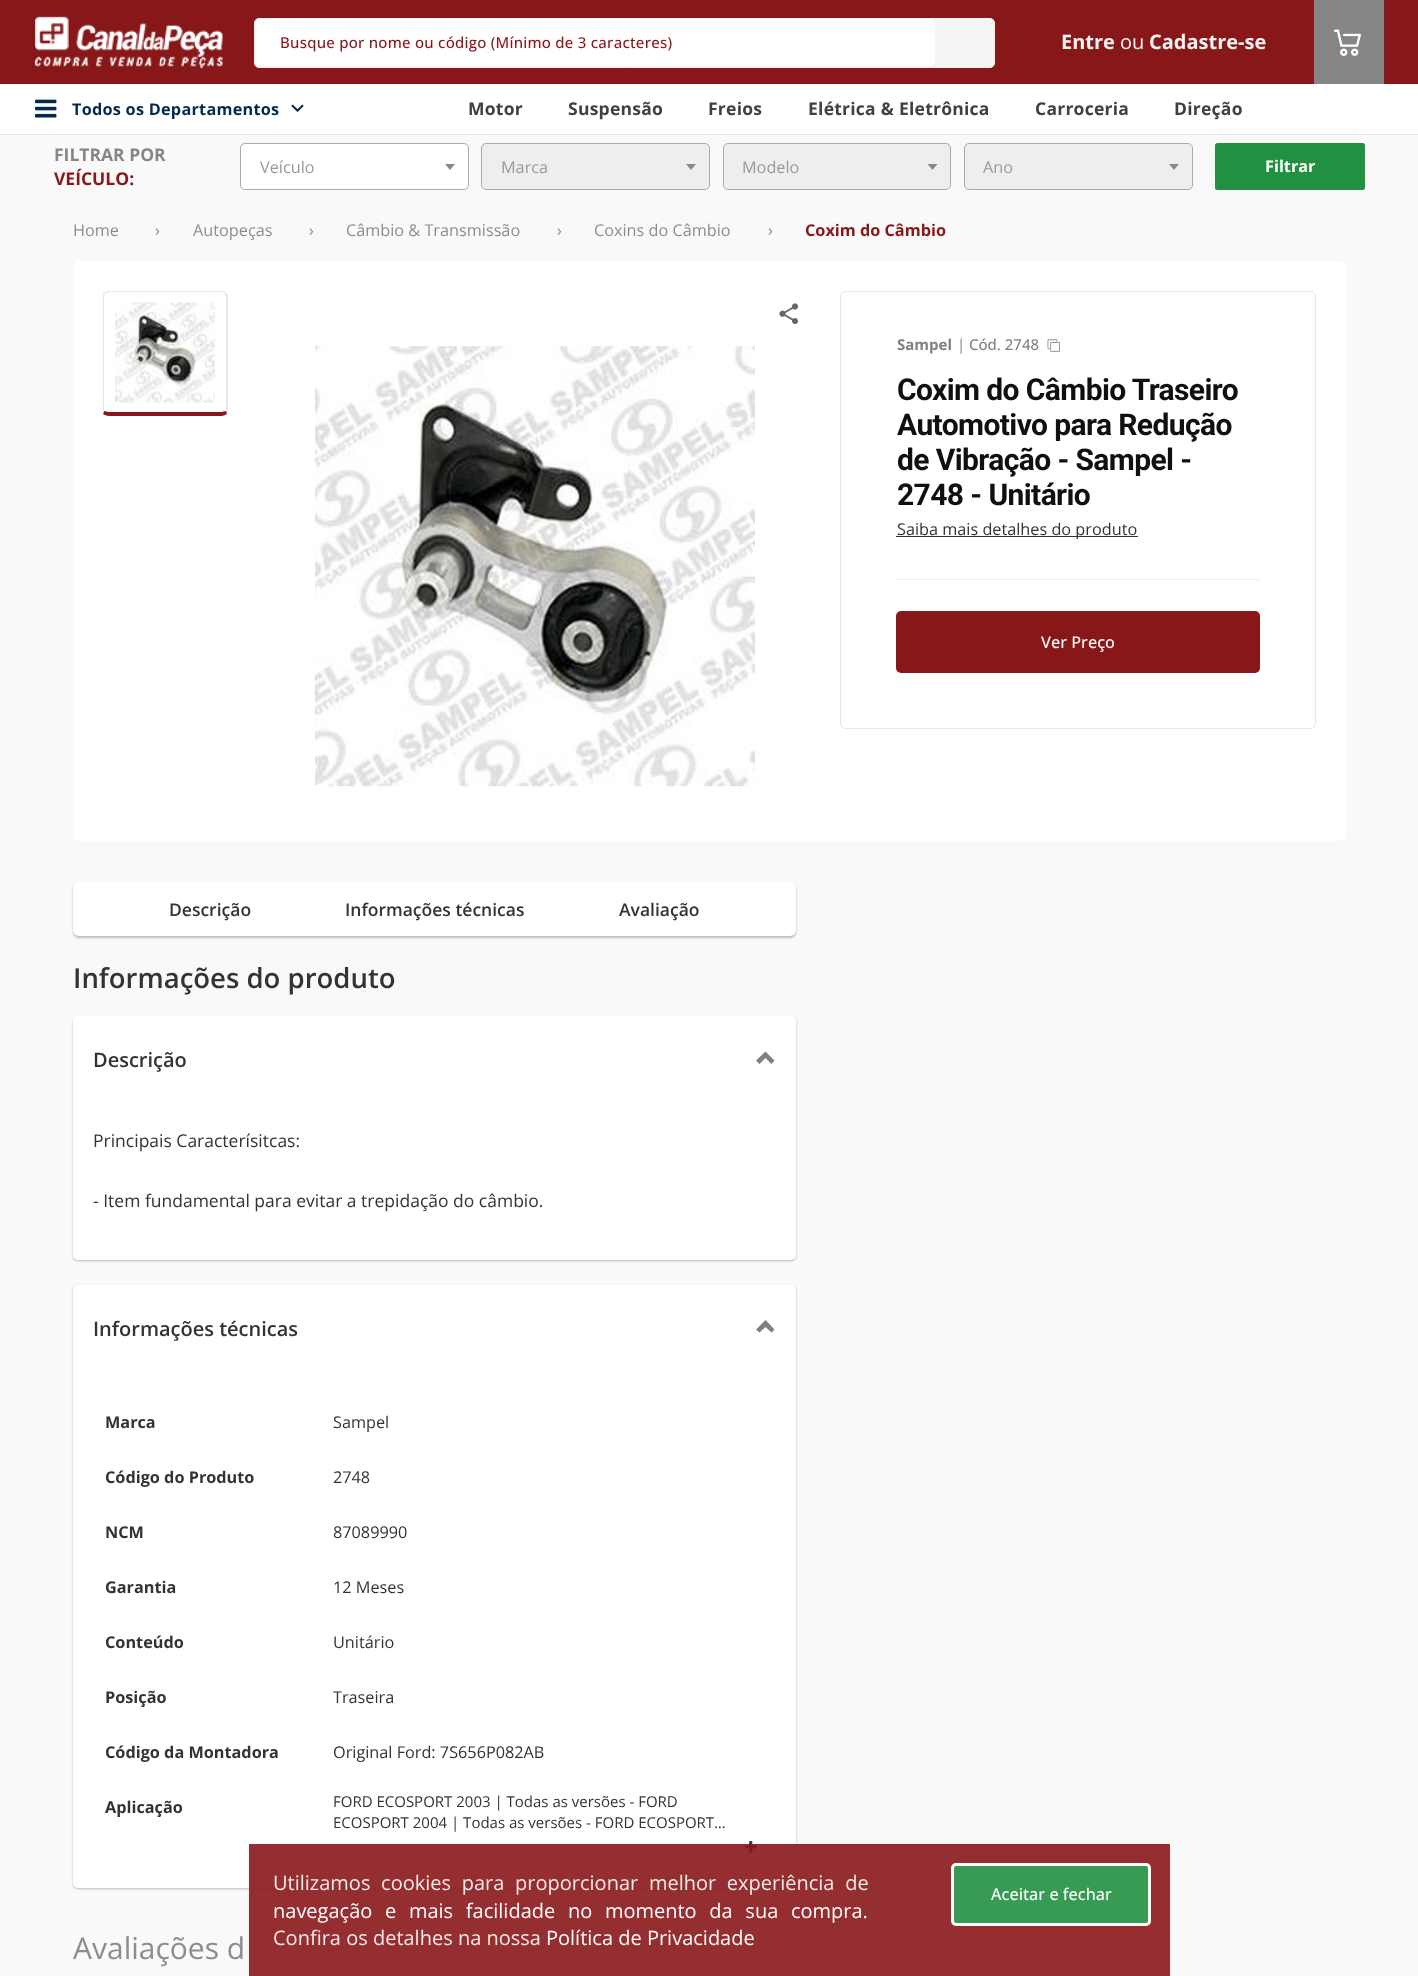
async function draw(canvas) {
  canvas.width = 1418;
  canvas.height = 1976;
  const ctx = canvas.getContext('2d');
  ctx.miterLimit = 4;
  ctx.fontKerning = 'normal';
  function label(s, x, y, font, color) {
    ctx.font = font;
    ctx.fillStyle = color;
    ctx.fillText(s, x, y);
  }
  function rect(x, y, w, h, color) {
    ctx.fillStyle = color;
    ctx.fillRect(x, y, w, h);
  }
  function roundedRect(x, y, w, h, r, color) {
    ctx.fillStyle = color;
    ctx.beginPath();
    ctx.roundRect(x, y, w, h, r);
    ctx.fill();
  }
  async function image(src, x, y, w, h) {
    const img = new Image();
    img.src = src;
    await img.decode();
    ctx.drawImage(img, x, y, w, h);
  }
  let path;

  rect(0, 0, 1418, 1976, '#f9f9f9');
  rect(0, 0, 1418, 84, '#88171a');
  await image('assets/img1.png', 35, 16, 188, 53);
  ctx.fillStyle = '#f4f4f4';
  ctx.beginPath();
  ctx.roundRect(254.5, 18.5, 740, 49, 4.5);
  ctx.fill();
  ctx.strokeStyle = '#f4f4f4';
  ctx.stroke();
  roundedRect(255, 19, 680, 47, 5, '#fff');
  ctx.letterSpacing = '0.25px';
  label('Busque por nome ou código (Mínimo de 3 caracteres)', 280, 48, '500 15px Open Sans', '#88171a');
  ctx.letterSpacing = '0px';
  label('Entre', 1061, 49, 'bold 20px Open Sans', '#f4f4f4');
  label('ou', 1120, 49, '20px Open Sans', '#f4f4f4');
  label('Cadastre-se', 1149, 49, 'bold 20px Open Sans', '#f4f4f4');
  rect(1314, 0, 70, 84, '#868685');
  await image('assets/img2.png', 1334, 29, 27, 27);
  rect(0, 84, 1418, 50, '#fff');
  rect(0, 134, 1418, 1, '#e8e8e8');
  await image('assets/img3.png', 35, 99, 22, 19);
  ctx.letterSpacing = '0.25px';
  label('Todos os Departamentos', 72, 115, 'bold 16.25px Open Sans', '#002a4f');
  await image('assets/img4.png', 291, 104, 13, 8);
  label('Motor', 468, 115, 'bold 17.5px Open Sans', '#404040');
  label('Suspensão', 568, 115, 'bold 17.5px Open Sans', '#404040');
  label('Freios', 708, 115, 'bold 17.5px Open Sans', '#404040');
  label('Elétrica & Eletrônica', 808, 115, 'bold 17.5px Open Sans', '#404040');
  label('Carroceria', 1035, 115, 'bold 17.5px Open Sans', '#404040');
  label('Direção', 1174, 115, 'bold 17.5px Open Sans', '#404040');
  ctx.letterSpacing = '0px';
  label('FILTRAR POR', 54, 161, 'bold 17.5px Open Sans', '#868685');
  label('VEÍCULO:', 54, 185, 'bold 17.5px Open Sans', '#88171a');
  ctx.fillStyle = '#fff';
  ctx.beginPath();
  ctx.roundRect(240.5, 143.5, 228, 46, 4.5);
  ctx.fill();
  ctx.strokeStyle = '#aaa';
  ctx.stroke();
  label('Veículo', 260, 173, '16.25px Open Sans', '#999');
  ctx.fillStyle = '#888';
  path = new Path2D('M445 164H455L450 170Z');
  ctx.fill(path);
  ctx.fillStyle = '#eee';
  ctx.beginPath();
  ctx.roundRect(481.5, 143.5, 228, 46, 4.5);
  ctx.fill();
  ctx.stroke();
  label('Marca', 501, 173, '16.25px Open Sans', '#999');
  ctx.fillStyle = '#888';
  path = new Path2D('M686 164H696L691 170Z');
  ctx.fill(path);
  ctx.fillStyle = '#eee';
  ctx.beginPath();
  ctx.roundRect(723.5, 143.5, 227, 46, 4.5);
  ctx.fill();
  ctx.stroke();
  label('Modelo', 742, 173, '16.25px Open Sans', '#999');
  ctx.fillStyle = '#888';
  path = new Path2D('M927.5 164H937.5L932.5 170Z');
  ctx.fill(path);
  ctx.fillStyle = '#eee';
  ctx.beginPath();
  ctx.roundRect(964.5, 143.5, 228, 46, 4.5);
  ctx.fill();
  ctx.stroke();
  label('Ano', 983, 173, '16.25px Open Sans', '#999');
  ctx.fillStyle = '#888';
  path = new Path2D('M1169 164H1179L1174 170Z');
  ctx.fill(path);
  roundedRect(1215, 143, 150, 47, 2.5, '#219141');
  label('Filtrar', 1265, 172, 'bold 16.25px Open Sans', '#fff');
  label('Home', 73, 236, '16.25px Open Sans', '#8d8d8f');
  label('›', 155, 236, '16.25px Open Sans', '#8d8d8f');
  label('Autopeças', 193, 236, '16.25px Open Sans', '#8d8d8f');
  label('›', 309, 236, '16.25px Open Sans', '#8d8d8f');
  label('Câmbio & Transmissão', 346, 236, '16.25px Open Sans', '#8d8d8f');
  label('›', 557, 236, '16.25px Open Sans', '#8d8d8f');
  label('Coxins do Câmbio', 594, 236, '16.25px Open Sans', '#8d8d8f');
  label('›', 768, 236, '16.25px Open Sans', '#8d8d8f');
  label('Coxim do Câmbio', 805, 236, 'bold 16.25px Open Sans', '#88171a');
  roundedRect(73, 261, 1273, 580, 6, '#fff');
  ctx.fillStyle = '#e8e8e8';
  path = new Path2D('M109 292C107 292 106 293 105 294L104 293L107 291H223L226 293L225 294C224 293 223 292 221 292Z');
  ctx.fill(path);
  path = new Path2D('M228 412L227 414L226 411V298L225 294L226 293L228 295Z');
  ctx.fill(path);
  ctx.fillStyle = '#88171a';
  path = new Path2D('M227 414C225 415 223 416 221 416H109C107 416 105 415 103 414L104 411C105 411 107 412 109 412H221C223 412 225 411 226 411Z');
  ctx.fill(path);
  ctx.save();
  ctx.beginPath();
  ctx.rect(103, 291, 137, 132);
  ctx.clip();
  ctx.fillStyle = '#e8e8e8';
  path = new Path2D('M102 295L104 293L105 294L104 298V411L103 414L102 412Z');
  ctx.fill(path);
  ctx.restore();
  await image('assets/img5.png', 115, 302, 100, 101);
  await image('assets/img6.png', 315, 346, 440, 441);
  await image('assets/img7.png', 779, 303, 20, 21);
  ctx.beginPath();
  ctx.roundRect(840.5, 291.5, 475, 437, 4.5);
  ctx.strokeStyle = '#e8e8e8';
  ctx.stroke();
  label('Sampel', 897, 350, 'bold 15px Open Sans', '#808080');
  label('|', 957, 350, '15px Open Sans', '#808080');
  label('Cód. 2748', 969, 350, '500 15px Open Sans', '#808080');
  await image('assets/img8.png', 1047, 339, 13, 13);
  ctx.letterSpacing = '-0.6px';
  label('Coxim do Câmbio Traseiro', 897, 400, 'bold 30px Roboto', '#101010');
  label('Automotivo para Redução', 897, 435, 'bold 30px Roboto', '#101010');
  label('de Vibração - Sampel -', 897, 470, 'bold 30px Roboto', '#101010');
  label('2748 - Unitário', 897, 505, 'bold 30px Roboto', '#101010');
  rect(896, 536, 242, 1, '#333');
  ctx.letterSpacing = '0px';
  label('Saiba mais detalhes do produto', 897, 535, '16.25px Open Sans', '#333');
  rect(896, 579, 364, 1, '#eee');
  roundedRect(896, 611, 364, 62, 5, '#88171a');
  label('Ver Preço', 1041, 648, '500 16.25px Open Sans', '#fff');
  ctx.fillStyle = '#00000040';
  ctx.filter = 'blur(1px)';
  ctx.beginPath();
  ctx.roundRect(73, 883, 723, 55, 6);
  ctx.fill();
  ctx.filter = 'none';
  roundedRect(73, 881, 723, 55, 6, '#fff');
  label('Descrição', 169, 916, '600 17.5px Open Sans', '#333');
  label('Informações técnicas', 345, 916, '600 17.5px Open Sans', '#333');
  label('Avaliação', 619, 916, '600 17.5px Open Sans', '#333');
  label('Informações do produto', 73, 988, '600 27.5px Open Sans', '#333');
  ctx.fillStyle = '#00000040';
  ctx.filter = 'blur(1px)';
  ctx.beginPath();
  ctx.roundRect(73, 1018, 723, 243, 5);
  ctx.fill();
  ctx.filter = 'none';
  roundedRect(73, 1016, 723, 244, 5, '#fff');
  label('Descrição', 93, 1067, '600 20px Open Sans', '#333');
  ctx.fillStyle = '#808080';
  path = new Path2D('M774.5 1060.5L771.5 1064L765.5 1058L759.5 1064L756 1060.5L765.5 1051.5Z');
  ctx.fill(path);
  label('Principais Caracterísitcas:', 93, 1147, '17.5px Open Sans', '#333');
  label('- Item fundamental para evitar a trepidação do câmbio.', 93, 1207, '17.5px Open Sans', '#333');
  ctx.fillStyle = '#00000040';
  ctx.filter = 'blur(1px)';
  ctx.beginPath();
  ctx.roundRect(73, 1286, 723, 603, 5);
  ctx.fill();
  ctx.filter = 'none';
  roundedRect(73, 1285, 723, 603, 5, '#fff');
  label('Informações técnicas', 93, 1336, '600 20px Open Sans', '#333');
  ctx.fillStyle = '#808080';
  path = new Path2D('M774.5 1329.5L771.5 1332.5L765.5 1327L759.5 1332.5L756 1329.5L765.5 1320Z');
  ctx.fill(path);
  label('Marca', 105, 1428, 'bold 16.25px Open Sans', '#333');
  label('Sampel', 333, 1428, '16.25px Open Sans', '#333');
  label('Código do Produto', 105, 1483, 'bold 16.25px Open Sans', '#333');
  label('2748', 333, 1483, '16.25px Open Sans', '#333');
  label('NCM', 105, 1538, 'bold 16.25px Open Sans', '#333');
  label('87089990', 333, 1538, '16.25px Open Sans', '#333');
  label('Garantia', 105, 1593, 'bold 16.25px Open Sans', '#333');
  label('12 Meses', 333, 1593, '16.25px Open Sans', '#333');
  label('Conteúdo', 105, 1648, 'bold 16.25px Open Sans', '#333');
  label('Unitário', 333, 1648, '16.25px Open Sans', '#333');
  label('Posição', 105, 1703, 'bold 16.25px Open Sans', '#333');
  label('Traseira', 333, 1703, '16.25px Open Sans', '#333');
  label('Código da Montadora', 105, 1758, 'bold 16.25px Open Sans', '#333');
  label('Original Ford: 7S656P082AB', 333, 1758, '16.25px Open Sans', '#333');
  label('Aplicação', 105, 1813, 'bold 16.25px Open Sans', '#333');
  label('FORD ECOSPORT 2003 | Todas as versões - FORD', 333, 1807, '15px Open Sans', '#333');
  label('ECOSPORT 2004 | Todas as versões - FORD ECOSPORT…', 333, 1828, '15px Open Sans', '#333');
  await image('assets/img9.png', 745, 1841, 12, 12);
  label('Avaliações d', 73, 1959, '30px Open Sans', '#8d8d8f');
  rect(249, 1844, 921, 132, '#88171ae6');
  ctx.wordSpacing = '5.5px';
  label('Utilizamos cookies para proporcionar melhor experiência de', 273, 1890, '20px Open Sans', '#f4eaea');
  ctx.wordSpacing = '7.5px';
  label('navegação e mais facilidade no momento da sua compra.', 273, 1918, '20px Open Sans', '#fff');
  ctx.wordSpacing = '0px';
  label('Confira os detalhes na nossa', 273, 1945, '20px Open Sans', '#f4eaea');
  label('Política de Privacidade', 546, 1945, '20px Open Sans', '#fff');
  ctx.fillStyle = '#379b53';
  ctx.beginPath();
  ctx.roundRect(952.5, 1864.5, 197, 60, 3.5);
  ctx.fill();
  ctx.strokeStyle = '#fefefe';
  ctx.lineWidth = 3;
  ctx.stroke();
  label('Aceitar e fechar', 991, 1900, '500 16.25px Open Sans', '#fff');
}

draw(document.querySelector('canvas'));
